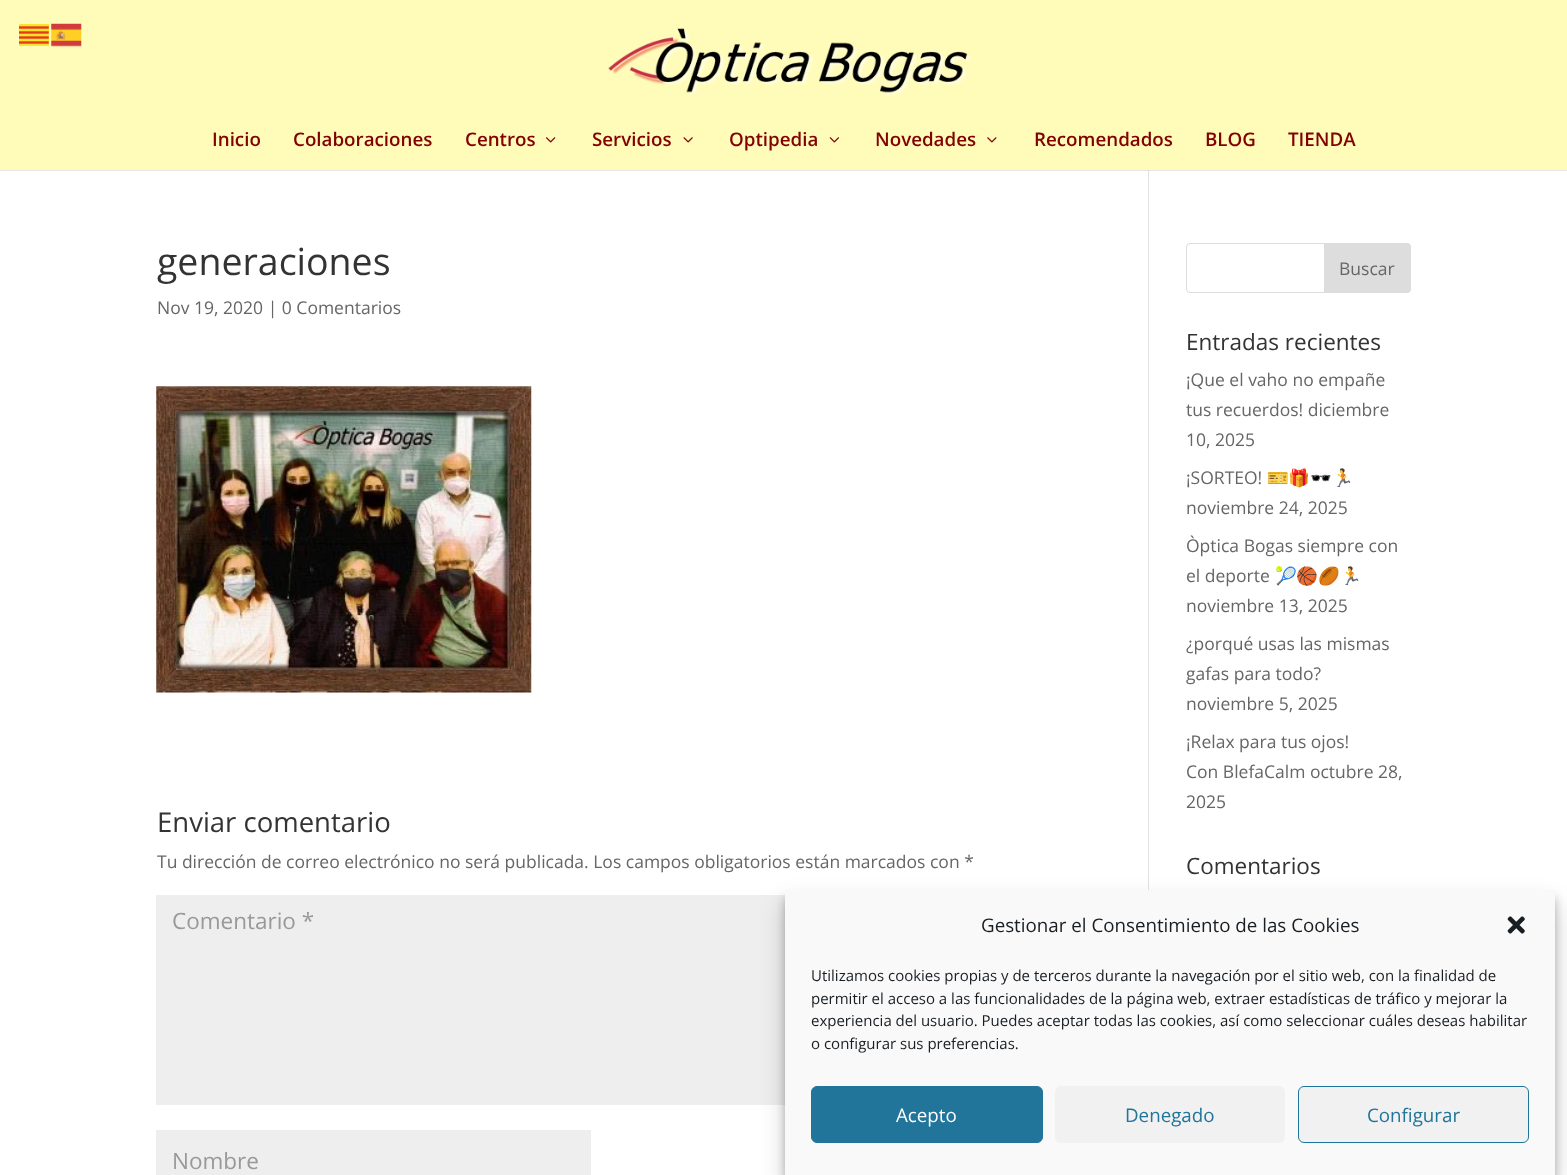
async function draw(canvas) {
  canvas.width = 1567;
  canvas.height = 1175;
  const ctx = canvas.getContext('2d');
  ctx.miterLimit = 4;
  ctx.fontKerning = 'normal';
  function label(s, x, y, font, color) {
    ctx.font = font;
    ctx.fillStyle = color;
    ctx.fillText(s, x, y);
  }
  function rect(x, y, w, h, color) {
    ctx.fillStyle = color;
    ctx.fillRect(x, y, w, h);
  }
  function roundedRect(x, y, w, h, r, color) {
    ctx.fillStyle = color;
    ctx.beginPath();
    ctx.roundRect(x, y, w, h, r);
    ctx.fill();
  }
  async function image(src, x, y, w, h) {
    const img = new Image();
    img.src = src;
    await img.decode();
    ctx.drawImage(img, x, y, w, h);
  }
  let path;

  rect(0, 0, 1567, 1175, '#fff');
  rect(0, 0, 1567, 170, '#fffcba');
  await image('assets/img1.png', 19, 24, 30, 22);
  await image('assets/img2.png', 51, 23, 31, 24);
  rect(1148, 170, 1, 720, '#e2e2e2');
  ctx.fillStyle = '#0000001a';
  path = new Path2D('M0 170V171H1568V1V170Z');
  ctx.fill(path);
  await image('assets/img3.png', 608, 28, 363, 68);
  label('Inicio', 212, 146, '600 18.75px Open Sans', '#820000');
  label('Colaboraciones', 293, 146, '600 18.75px Open Sans', '#820000');
  label('Centros', 465, 146, '600 18.75px Open Sans', '#820000');
  await image('assets/img4.png', 546, 137, 10, 6);
  label('Servicios', 592, 146, '600 18.75px Open Sans', '#820000');
  await image('assets/img5.png', 683, 137, 10, 6);
  label('Optipedia', 729, 146, '600 18.75px Open Sans', '#820000');
  await image('assets/img6.png', 829, 137, 10, 6);
  label('Novedades', 875, 146, '600 18.75px Open Sans', '#820000');
  await image('assets/img7.png', 987, 137, 10, 6);
  label('Recomendados', 1034, 146, '600 18.75px Open Sans', '#820000');
  label('BLOG', 1205, 146, '600 18.75px Open Sans', '#820000');
  label('TIENDA', 1288, 146, '600 18.75px Open Sans', '#820000');
  label('generaciones', 157, 275, '37.5px Open Sans', '#333');
  label('Nov 19, 2020 | 0 Comentarios', 157, 314, '17.5px Open Sans', '#666');
  await image('assets/img8.png', 156, 386, 376, 307);
  label('Enviar comentario', 157, 832, '27.5px Open Sans', '#333');
  label('Tu dirección de correo electrónico no será publicada. Los campos obligatorios están marcados con *', 157, 868, '17.5px Open Sans', '#666');
  rect(156, 895, 629, 210, '#eee');
  label('Comentario *', 172, 929, '22.5px Open Sans', '#999');
  rect(156, 1130, 435, 45, '#eee');
  label('Nombre', 172, 1169, '22.5px Open Sans', '#999');
  ctx.beginPath();
  ctx.roundRect(1186.5, 243.5, 224, 49, 3.5);
  ctx.strokeStyle = '#ddd';
  ctx.stroke();
  ctx.fillStyle = '#ddd';
  ctx.beginPath();
  ctx.roundRect(1324.5, 243.5, 86, 49, [0, 3.5, 3.5, 0]);
  ctx.fill();
  ctx.stroke();
  label('Buscar', 1339, 275, '17.5px Open Sans', '#666');
  label('Entradas recientes', 1186, 350, '22.5px Open Sans', '#333');
  label('¡Que el vaho no empañe', 1186, 386, '17.5px Open Sans', '#666');
  label('tus recuerdos! diciembre', 1186, 416, '17.5px Open Sans', '#666');
  label('10, 2025', 1186, 446, '17.5px Open Sans', '#666');
  label('¡SORTEO!', 1186, 484, '17.5px Open Sans', '#666');
  label('🎫🎁🕶️🏃', 1267, 484, '17.5px Noto Color Emoji', '#666');
  label('noviembre 24, 2025', 1186, 514, '17.5px Open Sans', '#666');
  label('Òptica Bogas siempre con', 1186, 552, '17.5px Open Sans', '#666');
  label('el deporte', 1186, 582, '17.5px Open Sans', '#666');
  label('🎾🏀🏉🏃', 1275, 582, '17.5px Noto Color Emoji', '#666');
  label('noviembre 13, 2025', 1186, 612, '17.5px Open Sans', '#666');
  label('¿porqué usas las mismas', 1186, 650, '17.5px Open Sans', '#666');
  label('gafas para todo?', 1186, 680, '17.5px Open Sans', '#666');
  label('noviembre 5, 2025', 1186, 710, '17.5px Open Sans', '#666');
  label('¡Relax para tus ojos!', 1186, 748, '17.5px Open Sans', '#666');
  label('Con BlefaCalm octubre 28,', 1186, 778, '17.5px Open Sans', '#666');
  label('2025', 1186, 808, '17.5px Open Sans', '#666');
  label('Comentarios', 1186, 874, '22.5px Open Sans', '#333');
  ctx.fillStyle = '#0000003b';
  ctx.filter = 'blur(4px)';
  ctx.beginPath();
  ctx.rect(785, 898, 770, 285);
  ctx.fill();
  ctx.filter = 'none';
  ctx.fillStyle = '#00000030';
  ctx.filter = 'blur(12.5px)';
  ctx.beginPath();
  ctx.rect(785, 903, 770, 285);
  ctx.fill();
  ctx.filter = 'none';
  rect(785, 890, 770, 285, '#f9f9f9');
  label('Gestionar el Consentimiento de las Cookies', 981, 932, '18.75px Open Sans', '#191e23');
  await image('assets/img9.png', 1507, 916, 18, 18);
  label('Utilizamos cookies propias y de terceros durante la navegación por el sitio web, con la finalidad de', 811, 981, '15px Open Sans', '#191e23');
  label('permitir el acceso a las funcionalidades de la página web, extraer estadísticas de tráfico y mejorar la', 811, 1004, '15px Open Sans', '#191e23');
  label('experiencia del usuario. Puedes aceptar todas las cookies, así como seleccionar cuáles deseas habilitar', 811, 1026, '15px Open Sans', '#191e23');
  label('o configurar sus preferencias.', 811, 1049, '15px Open Sans', '#191e23');
  ctx.fillStyle = '#21759b';
  ctx.beginPath();
  ctx.roundRect(811.5, 1086.5, 231, 56, 5.5);
  ctx.fill();
  ctx.strokeStyle = '#21759b';
  ctx.stroke();
  label('Acepto', 896, 1122, '18.75px Open Sans', '#fff');
  roundedRect(1055, 1086, 230, 57, 6, '#f1f1f1');
  label('Denegado', 1125, 1122, '18.75px Open Sans', '#21759b');
  ctx.fillStyle = '#f1f1f1';
  ctx.beginPath();
  ctx.roundRect(1298.5, 1086.5, 230, 56, 5.5);
  ctx.fill();
  ctx.stroke();
  label('Configurar', 1367, 1122, '18.75px Open Sans', '#21759b');
}

draw(document.querySelector('canvas'));
